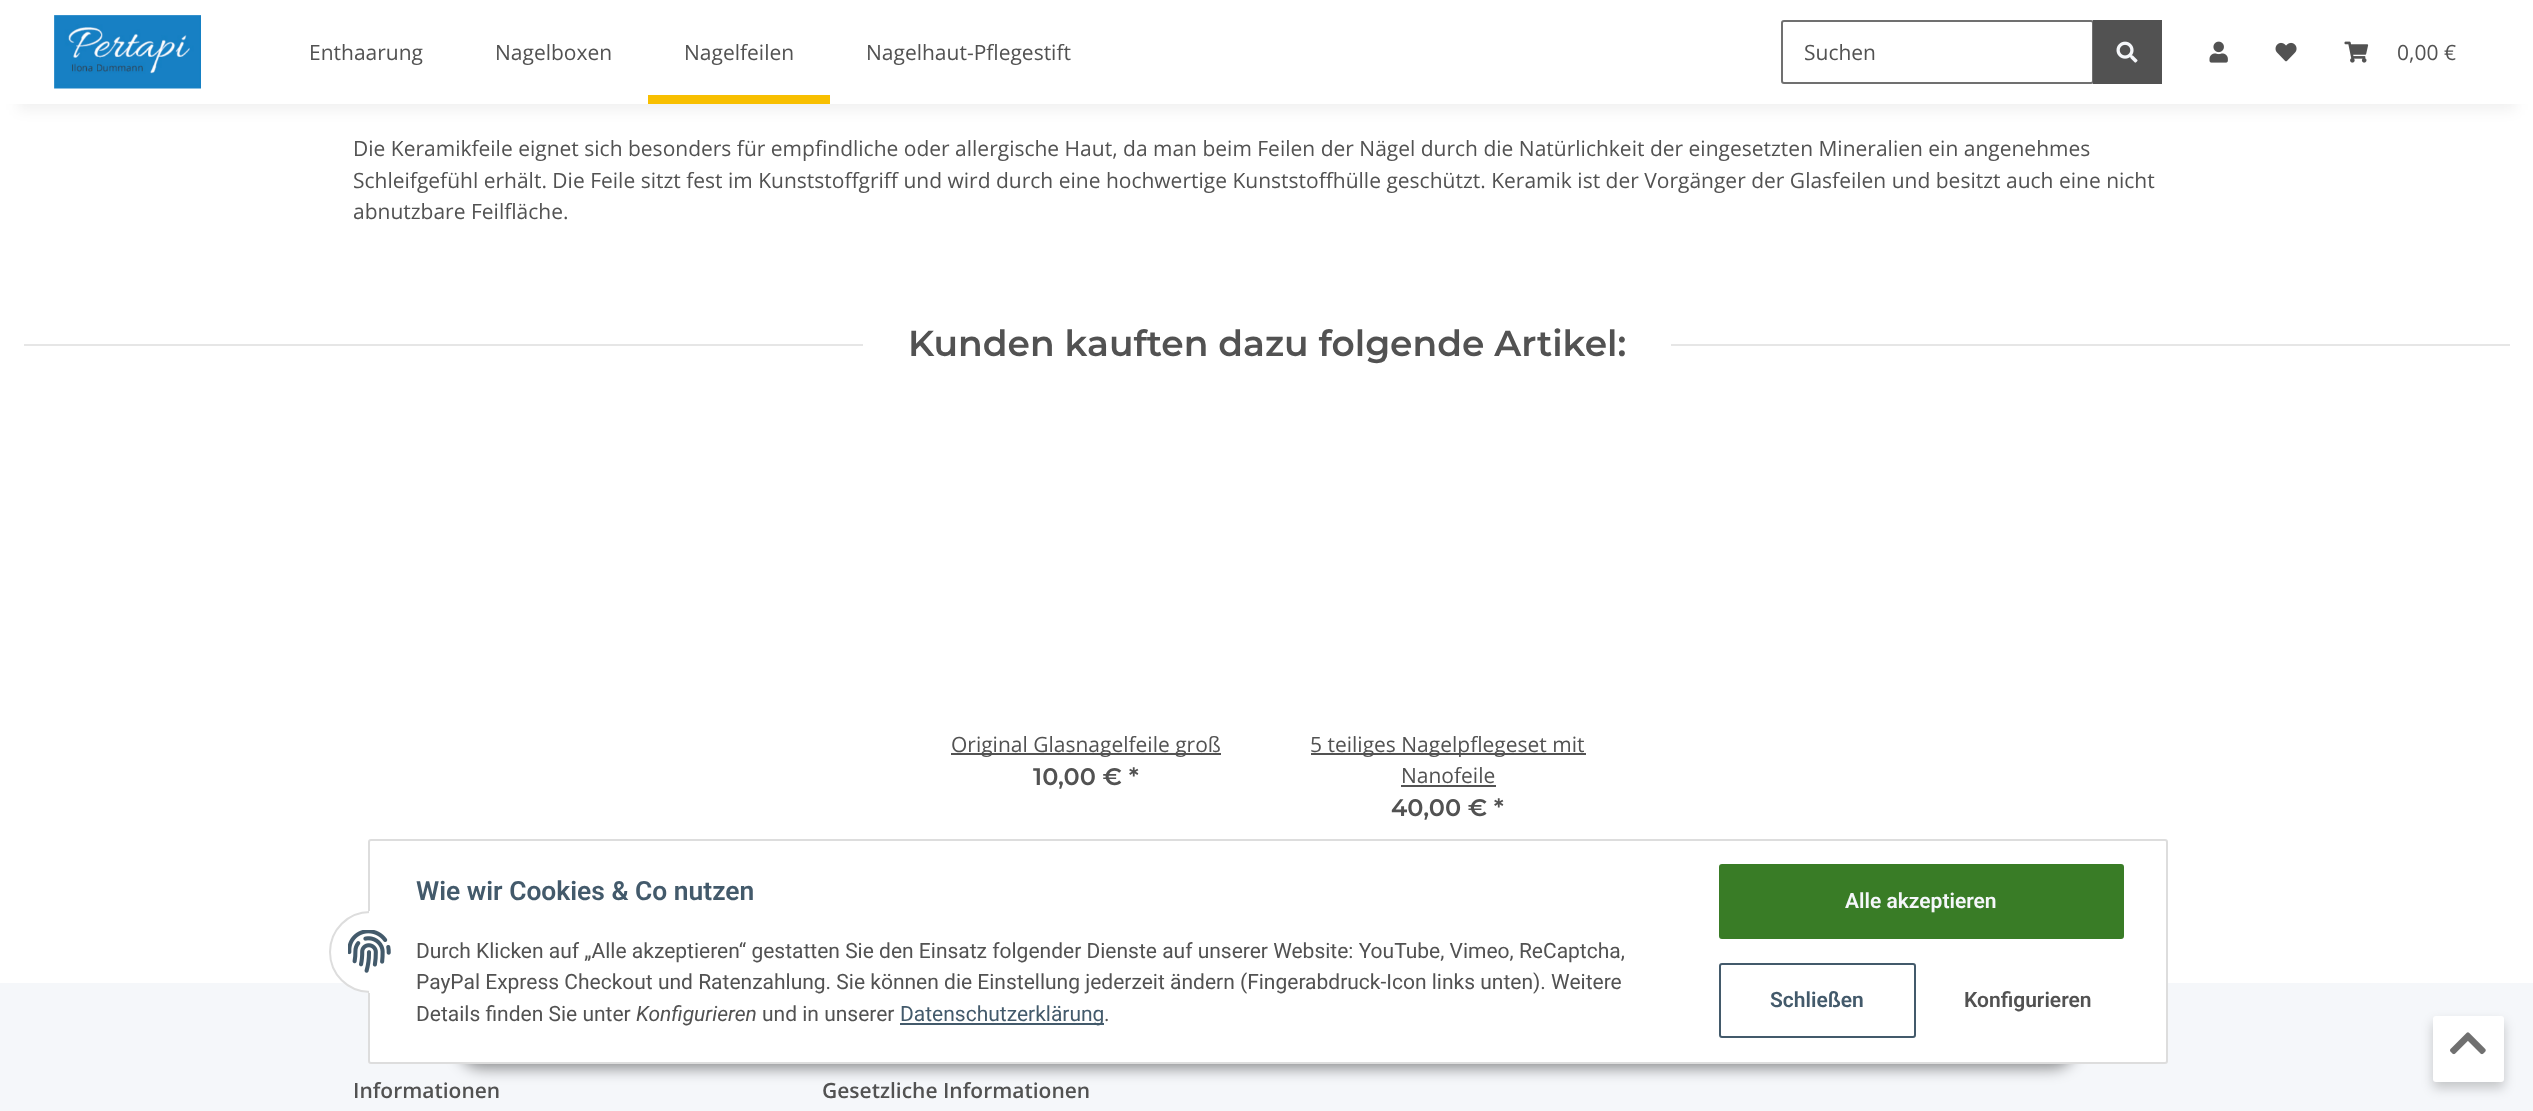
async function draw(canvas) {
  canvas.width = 2533;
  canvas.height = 1111;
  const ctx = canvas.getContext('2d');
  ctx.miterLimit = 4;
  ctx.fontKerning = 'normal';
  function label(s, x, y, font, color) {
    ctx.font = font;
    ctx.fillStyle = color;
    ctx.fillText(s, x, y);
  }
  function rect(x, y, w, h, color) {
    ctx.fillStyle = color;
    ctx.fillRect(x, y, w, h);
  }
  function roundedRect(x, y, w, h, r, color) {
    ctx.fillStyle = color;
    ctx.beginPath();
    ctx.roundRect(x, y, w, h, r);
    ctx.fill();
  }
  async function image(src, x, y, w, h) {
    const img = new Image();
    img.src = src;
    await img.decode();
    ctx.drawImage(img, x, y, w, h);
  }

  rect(0, 0, 2533, 1111, '#f5f7fa');
  rect(0, 104, 2533, 879, '#fff');
  ctx.fillStyle = '#0000000f';
  ctx.filter = 'blur(7px)';
  ctx.beginPath();
  ctx.rect(18, 42, 2498, 68);
  ctx.fill();
  ctx.filter = 'none';
  rect(0, 0, 2533, 104, '#fff');
  await image('assets/img1.png', 54, 15, 147, 74);
  label('Enthaarung', 309, 60, '21px Open Sans', '#525252');
  label('Nagelboxen', 495, 60, '21px Open Sans', '#525252');
  label('Nagelfeilen', 684, 60, '21px Open Sans', '#525252');
  rect(648, 95, 182, 9, '#f8bf00');
  label('Nagelhaut-Pflegestift', 866, 60, '21px Open Sans', '#525252');
  ctx.beginPath();
  ctx.roundRect(1782, 21, 311, 62, 2);
  ctx.strokeStyle = '#707070';
  ctx.lineWidth = 2;
  ctx.stroke();
  label('Suchen', 1804, 60, '21px Open Sans', '#525252');
  rect(2093, 20, 69, 64, '#525252');
  await image('assets/img2.png', 2116, 41, 22, 22);
  await image('assets/img3.png', 2209, 41, 19, 22);
  await image('assets/img4.png', 2275, 42, 22, 20);
  await image('assets/img5.png', 2344, 41, 25, 22);
  label('0,00 €', 2397, 60, '21px Open Sans', '#525252');
  label('Die Keramikfeile eignet sich besonders für empfindliche oder allergische Haut, da man beim Feilen der Nägel durch die Natürlichkeit der eingesetzten Mineralien ein angenehmes', 353, 156, '21px Open Sans', '#525252');
  label('Schleifgefühl erhält. Die Feile sitzt fest im Kunststoffgriff und wird durch eine hochwertige Kunststoffhülle geschützt. Keramik ist der Vorgänger der Glasfeilen und besitzt auch eine nicht', 353, 188, '21px Open Sans', '#525252');
  label('abnutzbare Feilfläche.', 353, 219, '21px Open Sans', '#525252');
  rect(24, 344, 839, 2, '#e6e6e6');
  label('Kunden kauften dazu folgende Artikel:', 908, 356, '600 36px Montserrat', '#525252');
  rect(1671, 344, 839, 2, '#e6e6e6');
  rect(951, 753, 270, 2, '#525252');
  label('Original Glasnagelfeile groß', 951, 752, '21px Open Sans', '#525252');
  label('10,00 € *', 1033, 785, '600 24px Montserrat', '#525252');
  rect(1311, 753, 275, 2, '#525252');
  label('5 teiliges Nagelpflegeset mit', 1310, 752, '21px Open Sans', '#525252');
  label('Nanofeile', 1401, 783, '21px Open Sans', '#525252');
  rect(1401, 785, 95, 2, '#525252');
  label('40,00 € *', 1391, 816, '600 24px Montserrat', '#525252');
  ctx.fillStyle = '#00000073';
  ctx.filter = 'blur(7.5px)';
  ctx.beginPath();
  ctx.roundRect(458, 1020, 1618, 48, 24);
  ctx.fill();
  ctx.filter = 'none';
  ctx.fillStyle = '#fff';
  ctx.beginPath();
  ctx.roundRect(369, 840, 1798, 223, 2);
  ctx.fill();
  ctx.strokeStyle = '#ddd';
  ctx.stroke();
  ctx.beginPath();
  ctx.arc(370, 952, 40, 0, 2 * Math.PI);
  ctx.fill();
  ctx.stroke();
  rect(369, 911, 42, 82, '#fff');
  await image('assets/img6.png', 348, 930, 43, 43);
  label('Wie wir Cookies & Co nutzen', 416, 900, '600 26.4px Roboto', '#435a6b');
  label('Durch Klicken auf „Alle akzeptieren“ gestatten Sie den Einsatz folgender Dienste auf unserer Website: YouTube, Vimeo, ReCaptcha,', 416, 958, '21px Roboto', '#525252');
  label('PayPal Express Checkout und Ratenzahlung. Sie können die Einstellung jederzeit ändern (Fingerabdruck-Icon links unten). Weitere', 416, 989, '21px Roboto', '#525252');
  label('Details finden Sie unter', 416, 1021, '21px Roboto', '#525252');
  label('Konfigurieren', 636, 1021, 'italic 21px Roboto', '#525252');
  label('und in unserer', 762, 1021, '21px Roboto', '#525252');
  rect(900, 1023, 204, 2, '#435a6b');
  label('Datenschutzerklärung', 900, 1021, '21px Roboto', '#435a6b');
  label('.', 1104, 1021, '21px Roboto', '#525252');
  ctx.fillStyle = '#397c26';
  ctx.beginPath();
  ctx.roundRect(1720, 865, 403, 73, 2);
  ctx.fill();
  ctx.strokeStyle = '#397c26';
  ctx.stroke();
  label('Alle akzeptieren', 1845, 908, '600 21px Roboto', '#f5f7fa');
  ctx.beginPath();
  ctx.roundRect(1720, 964, 195, 73, 2);
  ctx.strokeStyle = '#435a6b';
  ctx.stroke();
  label('Schließen', 1770, 1007, '600 21px Roboto', '#435a6b');
  label('Konfigurieren', 1964, 1007, '600 21px Roboto', '#525252');
  label('Informationen', 353, 1098, '600 21px Open Sans', '#525252');
  label('Gesetzliche Informationen', 822, 1098, '600 21px Open Sans', '#525252');
  ctx.fillStyle = '#00000033';
  ctx.filter = 'blur(6px)';
  ctx.beginPath();
  ctx.roundRect(2433, 1022, 71, 66, 3);
  ctx.fill();
  ctx.filter = 'none';
  roundedRect(2433, 1016, 71, 66, 3, '#fff');
  await image('assets/img7.png', 2450, 1032, 36, 23);
}

draw(document.querySelector('canvas'));
